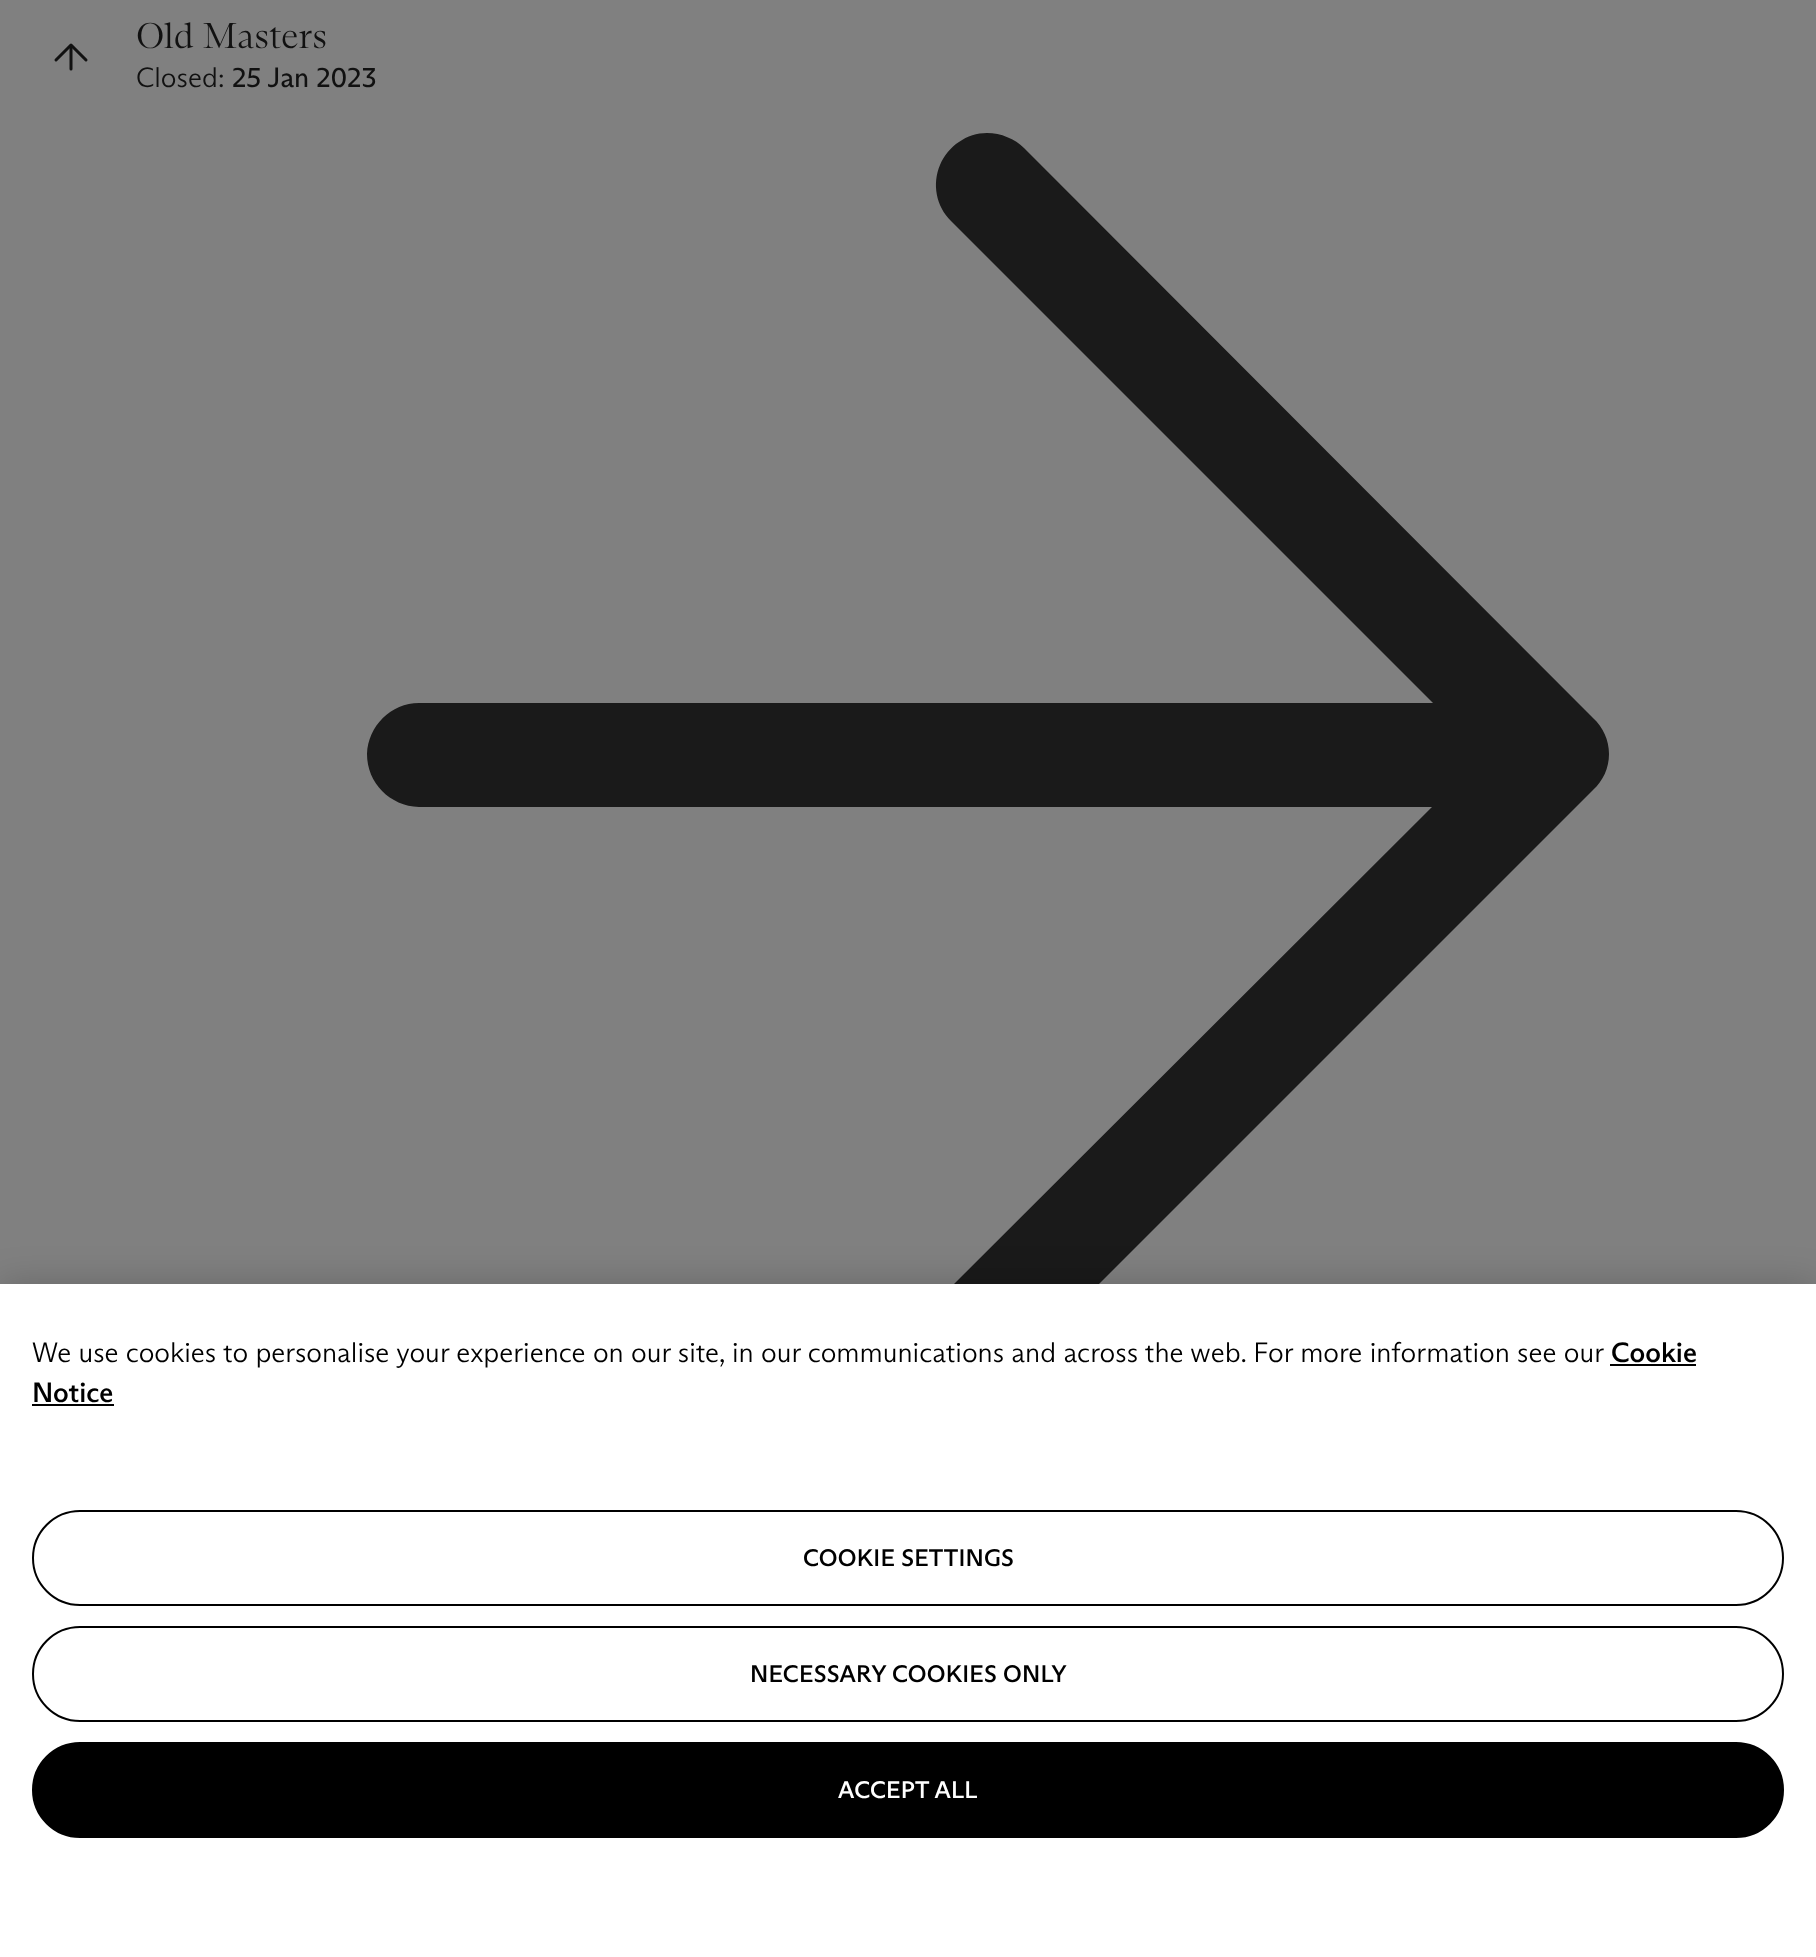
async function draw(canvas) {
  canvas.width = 1816;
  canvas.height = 1957;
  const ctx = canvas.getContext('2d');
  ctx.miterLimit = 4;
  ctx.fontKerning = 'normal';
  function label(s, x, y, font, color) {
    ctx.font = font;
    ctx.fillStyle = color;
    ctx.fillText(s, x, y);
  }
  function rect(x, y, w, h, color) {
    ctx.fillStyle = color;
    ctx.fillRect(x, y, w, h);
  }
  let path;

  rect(0, 0, 1816, 1957, '#808080');
  path = new Path2D('M86 60L71 45L56 60');
  ctx.strokeStyle = '#111';
  ctx.lineWidth = 3;
  ctx.lineCap = 'round';
  ctx.lineJoin = 'round';
  ctx.stroke(path);
  path = new Path2D('M71 48V69');
  ctx.lineJoin = 'miter';
  ctx.stroke(path);
  label('Old Masters', 136, 48, '300 36px "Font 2"', '#111');
  label('Closed:', 136, 87, '300 28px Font', '#111');
  label('25 Jan 2023', 232, 87, '28px Font', '#111');
  ctx.fillStyle = '#1a1a1a';
  path = new Path2D('M419 703H1433L951 221C936 206 932 184 940 165C948 146 967 133 987 133C1001 133 1015 139 1024 148L1593 718C1603 727 1609 740 1609 754C1609 768 1603 781 1593 790L1024 1359C1015 1369 1002 1375 988 1375C967 1375 948 1362 940 1343C932 1324 936 1302 951 1287L1432 807H419C390 806 367 783 367 754C368 726 391 703 419 703');
  ctx.fill(path);
  ctx.fillStyle = '#00000033';
  ctx.filter = 'blur(18px)';
  ctx.beginPath();
  ctx.rect(0, 1284, 1816, 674);
  ctx.fill();
  ctx.filter = 'none';
  rect(0, 1284, 1816, 673, '#fff');
  label('We use cookies to personalise your experience on our site, in our communications and across the web. For more information see our', 32, 1362, '300 28px Font', '#000');
  label('Cookie', 1611, 1362, '500 28px Font', '#000');
  rect(1610, 1364, 86, 2, '#000');
  label('Notice', 32, 1402, '500 28px Font', '#000');
  rect(32, 1404, 82, 2, '#000');
  ctx.beginPath();
  ctx.roundRect(33, 1511, 1750, 94, 47);
  ctx.strokeStyle = '#000';
  ctx.lineWidth = 2;
  ctx.stroke();
  ctx.letterSpacing = '0.25px';
  label('COOKIE SETTINGS', 803, 1566, '500 24px Font', '#000');
  ctx.beginPath();
  ctx.roundRect(33, 1627, 1750, 94, 47);
  ctx.stroke();
  label('NECESSARY COOKIES ONLY', 750, 1682, '500 24px Font', '#000');
  ctx.beginPath();
  ctx.roundRect(33, 1743, 1750, 94, 47);
  ctx.fill();
  ctx.stroke();
  label('ACCEPT ALL', 838, 1798, '500 24px Font', '#fff');
}

draw(document.querySelector('canvas'));
